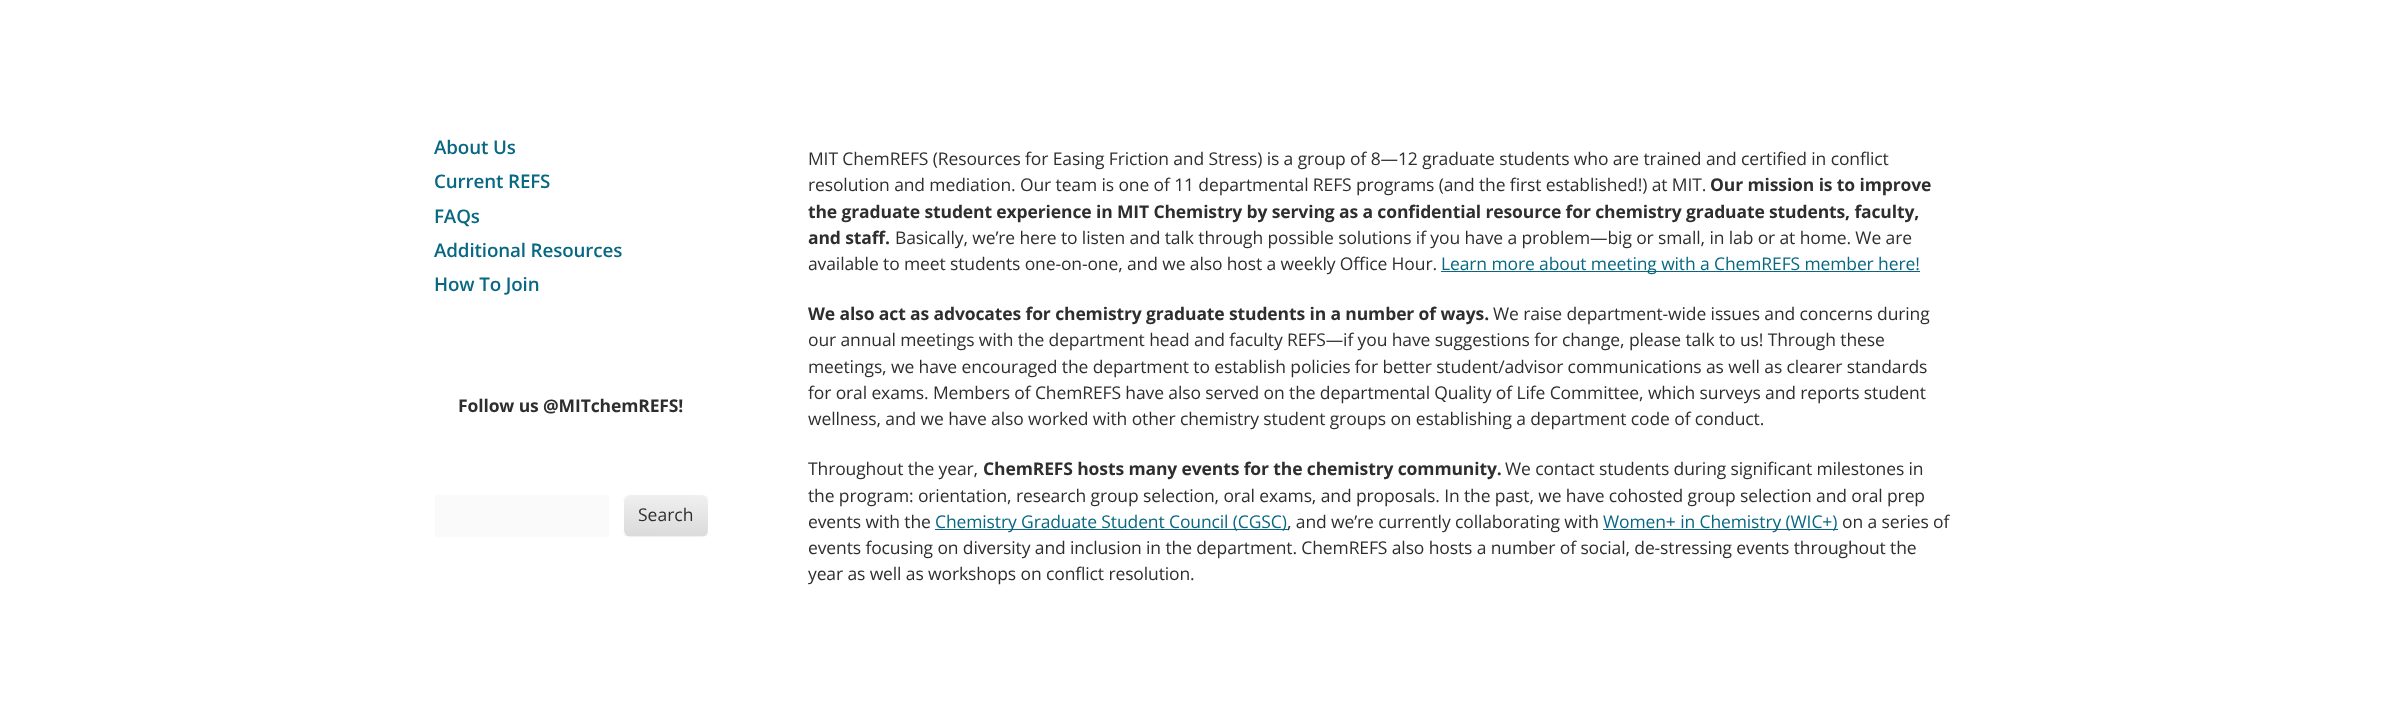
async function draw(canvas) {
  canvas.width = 2407;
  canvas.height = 724;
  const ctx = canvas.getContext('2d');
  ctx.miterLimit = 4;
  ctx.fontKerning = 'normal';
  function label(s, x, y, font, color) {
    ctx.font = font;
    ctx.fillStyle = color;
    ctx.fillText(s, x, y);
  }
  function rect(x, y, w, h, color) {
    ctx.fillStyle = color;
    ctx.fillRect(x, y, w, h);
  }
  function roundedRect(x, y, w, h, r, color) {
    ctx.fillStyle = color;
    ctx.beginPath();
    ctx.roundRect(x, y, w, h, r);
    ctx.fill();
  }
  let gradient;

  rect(0, 0, 2407, 724, '#fff');
  ctx.letterSpacing = '-0.12px';
  label('About Us', 434, 154, '600 18.75px Open Sans', '#086782');
  label('Current REFS', 434, 188, '600 18.75px Open Sans', '#086782');
  label('FAQs', 434, 223, '600 18.75px Open Sans', '#086782');
  label('Additional Resources', 434, 257, '600 18.75px Open Sans', '#086782');
  label('How To Join', 434, 291, '600 18.75px Open Sans', '#086782');
  label('Follow us @MITchemREFS!', 458, 412, 'bold 17.5px Open Sans', '#2e2e2e');
  ctx.fillStyle = '#fafafa';
  ctx.beginPath();
  ctx.roundRect(434.5, 494.5, 175, 43, 3.5);
  ctx.fill();
  ctx.strokeStyle = '#fff';
  ctx.stroke();
  roundedRect(623, 494, 86, 44, 8, '#f0f0f0');
  ctx.save();
  ctx.beginPath();
  ctx.roundRect(623, 494, 86, 44, 8);
  ctx.clip();
  gradient = ctx.createLinearGradient(665, 537, 666, 494);
  gradient.addColorStop(0, '#dadada');
  gradient.addColorStop(1, '#dadada00');
  ctx.fillStyle = gradient;
  ctx.fillRect(624, 495, 84, 41);
  ctx.restore();
  ctx.beginPath();
  ctx.roundRect(623.5, 494.5, 85, 43, 7.5);
  ctx.stroke();
  ctx.letterSpacing = '0px';
  label('Search', 638, 521, '17.5px Open Sans', '#2e2e2e');
  ctx.letterSpacing = '-0.12px';
  label('MIT ChemREFS (Resources for Easing Friction and Stress) is a group of 8—12 graduate students who are trained and certified in conflict', 808, 165, '17.5px Open Sans', '#2e2e2e');
  label('resolution and mediation. Our team is one of 11 departmental REFS programs (and the first established!) at MIT.', 808, 191, '17.5px Open Sans', '#2e2e2e');
  label('Our mission is to improve', 1710, 191, 'bold 17.5px Open Sans', '#2e2e2e');
  label('the graduate student experience in MIT Chemistry by serving as a confidential resource for chemistry graduate students, faculty,', 808, 218, 'bold 17.5px Open Sans', '#2e2e2e');
  label('and staff.', 808, 244, 'bold 17.5px Open Sans', '#2e2e2e');
  label('Basically, we’re here to listen and talk through possible solutions if you have a problem—big or small, in lab or at home. We are', 895, 244, '17.5px Open Sans', '#2e2e2e');
  label('available to meet students one-on-one, and we also host a weekly Office Hour.', 808, 270, '17.5px Open Sans', '#2e2e2e');
  rect(1441, 271, 479, 1, '#086782');
  label('Learn more about meeting with a ChemREFS member here!', 1441, 270, '17.5px Open Sans', '#086782');
  label('We also act as advocates for chemistry graduate students in a number of ways.', 808, 320, 'bold 17.5px Open Sans', '#2e2e2e');
  label('We raise department-wide issues and concerns during', 1493, 320, '17.5px Open Sans', '#2e2e2e');
  label('our annual meetings with the department head and faculty REFS—if you have suggestions for change, please talk to us! Through these', 808, 346, '17.5px Open Sans', '#2e2e2e');
  label('meetings, we have encouraged the department to establish policies for better student/advisor communications as well as clearer standards', 808, 373, '17.5px Open Sans', '#2e2e2e');
  label('for oral exams. Members of ChemREFS have also served on the departmental Quality of Life Committee, which surveys and reports student', 808, 399, '17.5px Open Sans', '#2e2e2e');
  label('wellness, and we have also worked with other chemistry student groups on establishing a department code of conduct.', 808, 425, '17.5px Open Sans', '#2e2e2e');
  label('Throughout the year,', 808, 475, '17.5px Open Sans', '#2e2e2e');
  label('ChemREFS hosts many events for the chemistry community.', 983, 475, 'bold 17.5px Open Sans', '#2e2e2e');
  label('We contact students during significant milestones in', 1505, 475, '17.5px Open Sans', '#2e2e2e');
  label('the program: orientation, research group selection, oral exams, and proposals. In the past, we have cohosted group selection and oral prep', 808, 502, '17.5px Open Sans', '#2e2e2e');
  label('events with the', 808, 528, '17.5px Open Sans', '#2e2e2e');
  rect(935, 529, 353, 1, '#086782');
  label('Chemistry Graduate Student Council (CGSC)', 935, 528, '17.5px Open Sans', '#086782');
  label(', and we’re currently collaborating with', 1287, 528, '17.5px Open Sans', '#2e2e2e');
  rect(1603, 529, 235, 1, '#086782');
  label('Women+ in Chemistry (WIC+)', 1603, 528, '17.5px Open Sans', '#086782');
  label('on a series of', 1842, 528, '17.5px Open Sans', '#2e2e2e');
  label('events focusing on diversity and inclusion in the department. ChemREFS also hosts a number of social, de-stressing events throughout the', 808, 554, '17.5px Open Sans', '#2e2e2e');
  label('year as well as workshops on conflict resolution.', 808, 580, '17.5px Open Sans', '#2e2e2e');
}

draw(document.querySelector('canvas'));
